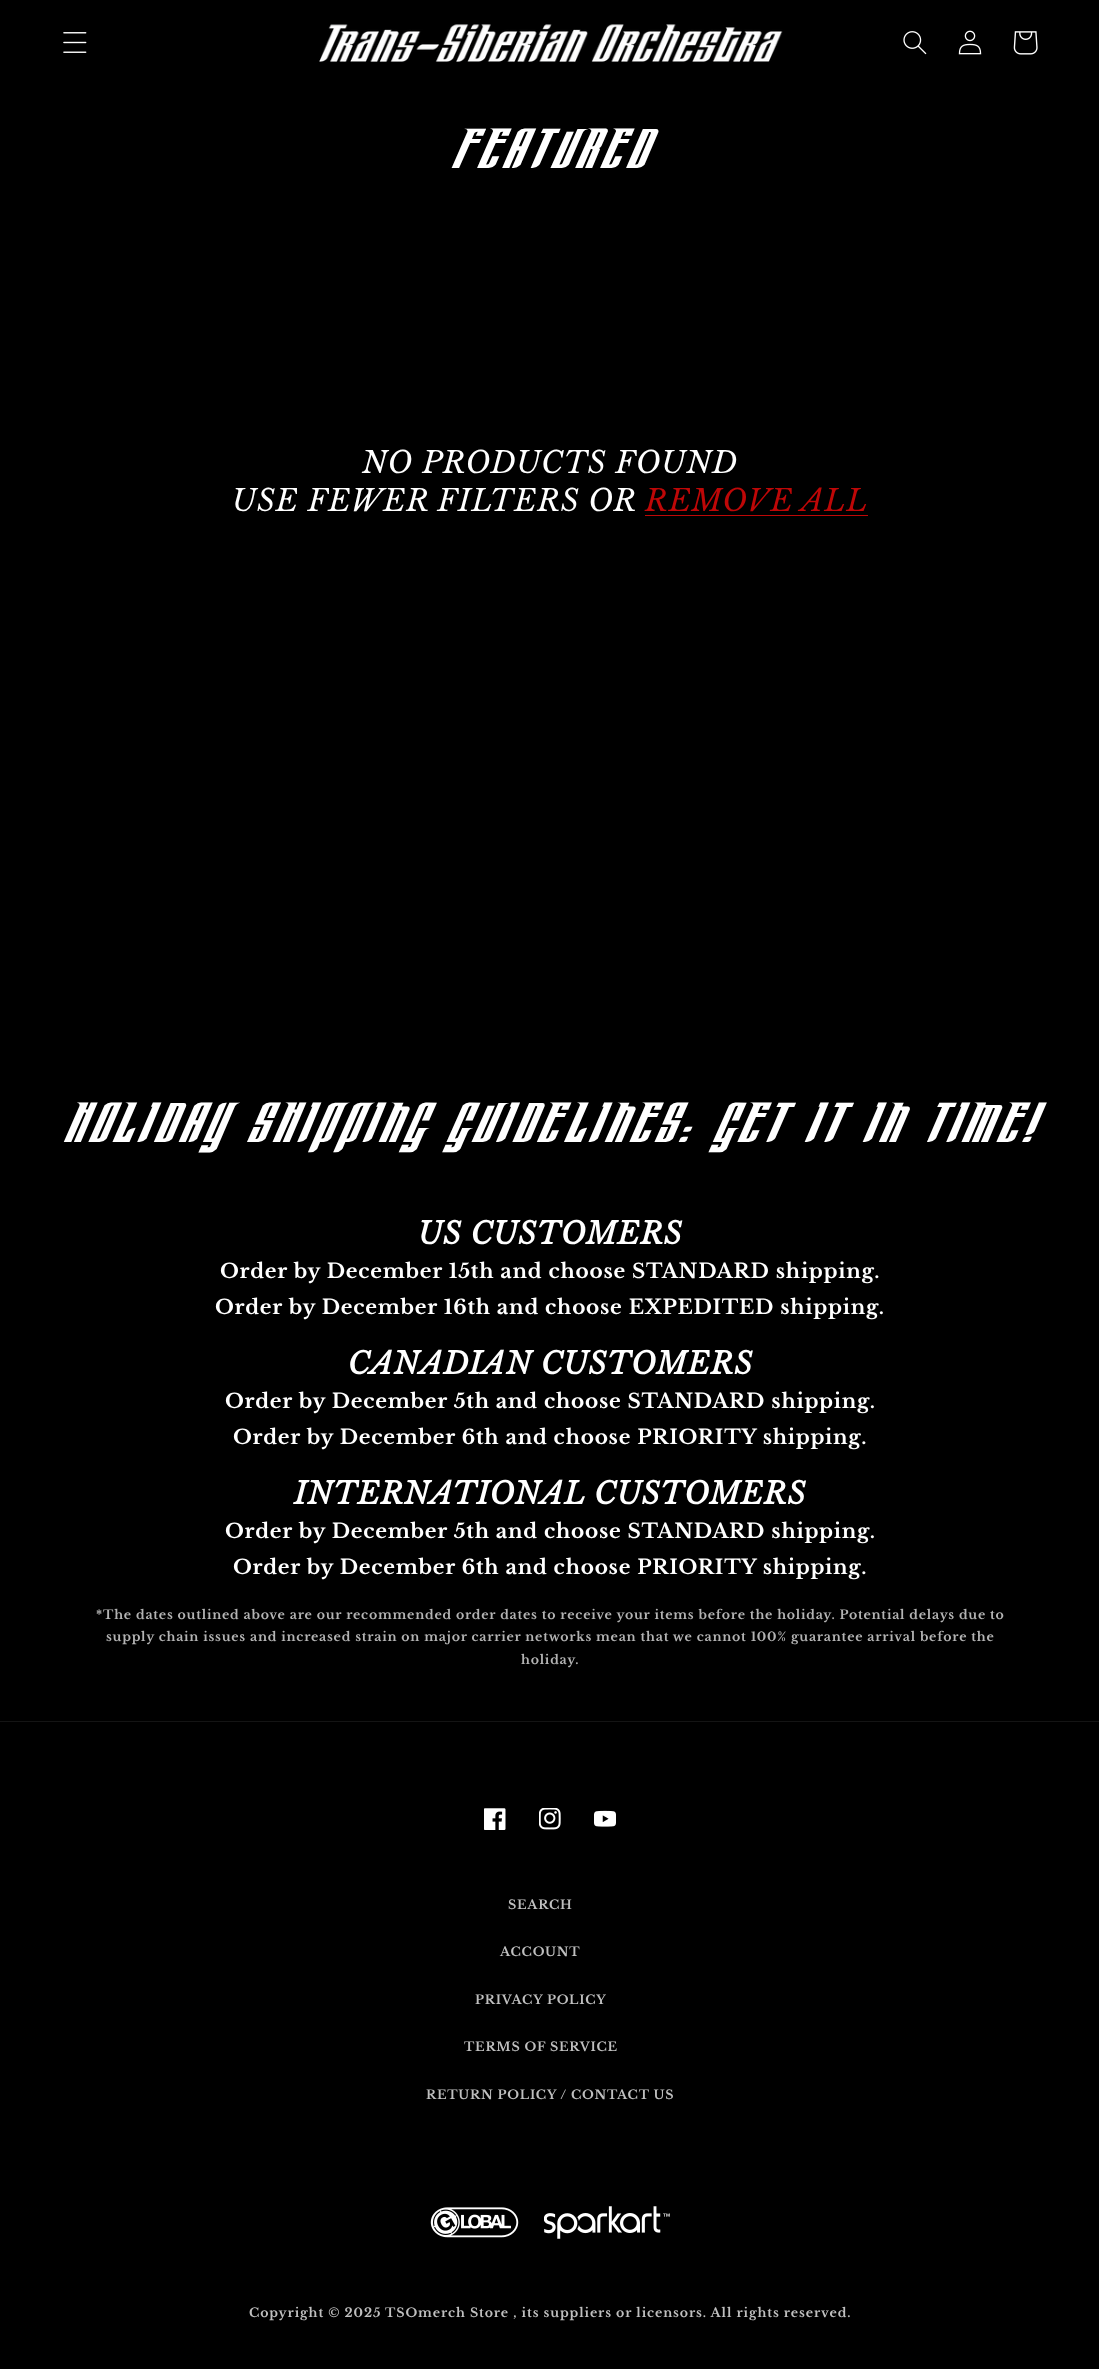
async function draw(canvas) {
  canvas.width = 1099;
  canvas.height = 2369;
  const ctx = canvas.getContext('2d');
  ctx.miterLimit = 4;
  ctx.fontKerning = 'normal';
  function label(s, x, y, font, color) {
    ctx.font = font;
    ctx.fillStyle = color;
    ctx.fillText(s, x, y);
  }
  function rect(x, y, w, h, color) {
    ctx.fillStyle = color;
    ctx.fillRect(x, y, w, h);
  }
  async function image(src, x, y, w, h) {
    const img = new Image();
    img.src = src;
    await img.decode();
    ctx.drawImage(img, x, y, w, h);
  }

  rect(0, 0, 1099, 2369, '#000');
  await image('assets/img1.png', 63, 32, 24, 21);
  await image('assets/img2.png', 319, 24, 464, 38);
  await image('assets/img3.png', 903, 31, 24, 24);
  await image('assets/img4.png', 958, 30, 24, 25);
  await image('assets/img5.png', 1013, 31, 25, 24);
  ctx.letterSpacing = '5px';
  label('FEATURED', 450, 168, '500 50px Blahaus', '#fff');
  ctx.letterSpacing = '0.75px';
  label('NO PRODUCTS FOUND', 362, 473, 'italic 30px Libre Baskerville', '#fff');
  label('USE FEWER FILTERS OR', 232, 511, 'italic 30px Libre Baskerville', '#fff');
  label('REMOVE ALL', 645, 511, 'italic 30px Libre Baskerville', '#be0707');
  rect(645, 515, 223, 1, '#be0707');
  ctx.letterSpacing = '5px';
  label('HOLIDAY SHIPPING GUIDELINES: GET IT IN TIME!', 62, 1142, '500 50px Blahaus', '#fff');
  ctx.letterSpacing = '0.75px';
  label('US CUSTOMERS', 418, 1244, 'italic bold 30px Libre Baskerville', '#fff');
  label('Order by December 15th and choose STANDARD shipping.', 220, 1278, 'bold 20px Libre Baskerville', '#fff');
  label('Order by December 16th and choose EXPEDITED shipping.', 215, 1314, 'bold 20px Libre Baskerville', '#fff');
  label('CANADIAN CUSTOMERS', 348, 1374, 'italic bold 30px Libre Baskerville', '#fff');
  label('Order by December 5th and choose STANDARD shipping.', 225, 1408, 'bold 20px Libre Baskerville', '#fff');
  label('Order by December 6th and choose PRIORITY shipping.', 233, 1444, 'bold 20px Libre Baskerville', '#fff');
  label('INTERNATIONAL CUSTOMERS', 294, 1504, 'italic bold 30px Libre Baskerville', '#fff');
  label('Order by December 5th and choose STANDARD shipping.', 225, 1538, 'bold 20px Libre Baskerville', '#fff');
  label('Order by December 6th and choose PRIORITY shipping.', 233, 1574, 'bold 20px Libre Baskerville', '#fff');
  label('*The dates outlined above are our recommended order dates to receive your items before the holiday. Potential delays due to', 96, 1619, 'bold 12.5px Libre Baskerville', '#b3b3b3');
  label('supply chain issues and increased strain on major carrier networks mean that we cannot 100% guarantee arrival before the', 106, 1641, 'bold 12.5px Libre Baskerville', '#b3b3b3');
  label('holiday.', 521, 1664, 'bold 12.5px Libre Baskerville', '#b3b3b3');
  rect(0, 1721, 1099, 1, '#141414');
  await image('assets/img6.png', 484, 1808, 22, 22);
  await image('assets/img7.png', 539, 1808, 22, 22);
  await image('assets/img8.png', 594, 1810, 22, 17);
  label('SEARCH', 508, 1909, 'bold 12.5px Libre Baskerville', '#bfbfbf');
  label('ACCOUNT', 500, 1956, 'bold 12.5px Libre Baskerville', '#bfbfbf');
  label('PRIVACY POLICY', 475, 2004, 'bold 12.5px Libre Baskerville', '#bfbfbf');
  label('TERMS OF SERVICE', 464, 2051, 'bold 12.5px Libre Baskerville', '#bfbfbf');
  label('RETURN POLICY / CONTACT US', 426, 2099, 'bold 12.5px Libre Baskerville', '#bfbfbf');
  await image('assets/img9.png', 430, 2207, 89, 31);
  await image('assets/img10.png', 544, 2206, 126, 33);
  ctx.letterSpacing = '0.88px';
  label('Copyright © 2025', 249, 2317, 'bold 12.5px Libre Baskerville', '#bfbfbf');
  label('TSOmerch Store , its suppliers or licensors. All rights reserved.', 385, 2317, 'bold 12.5px Libre Baskerville', '#bfbfbf');
}

draw(document.querySelector('canvas'));
